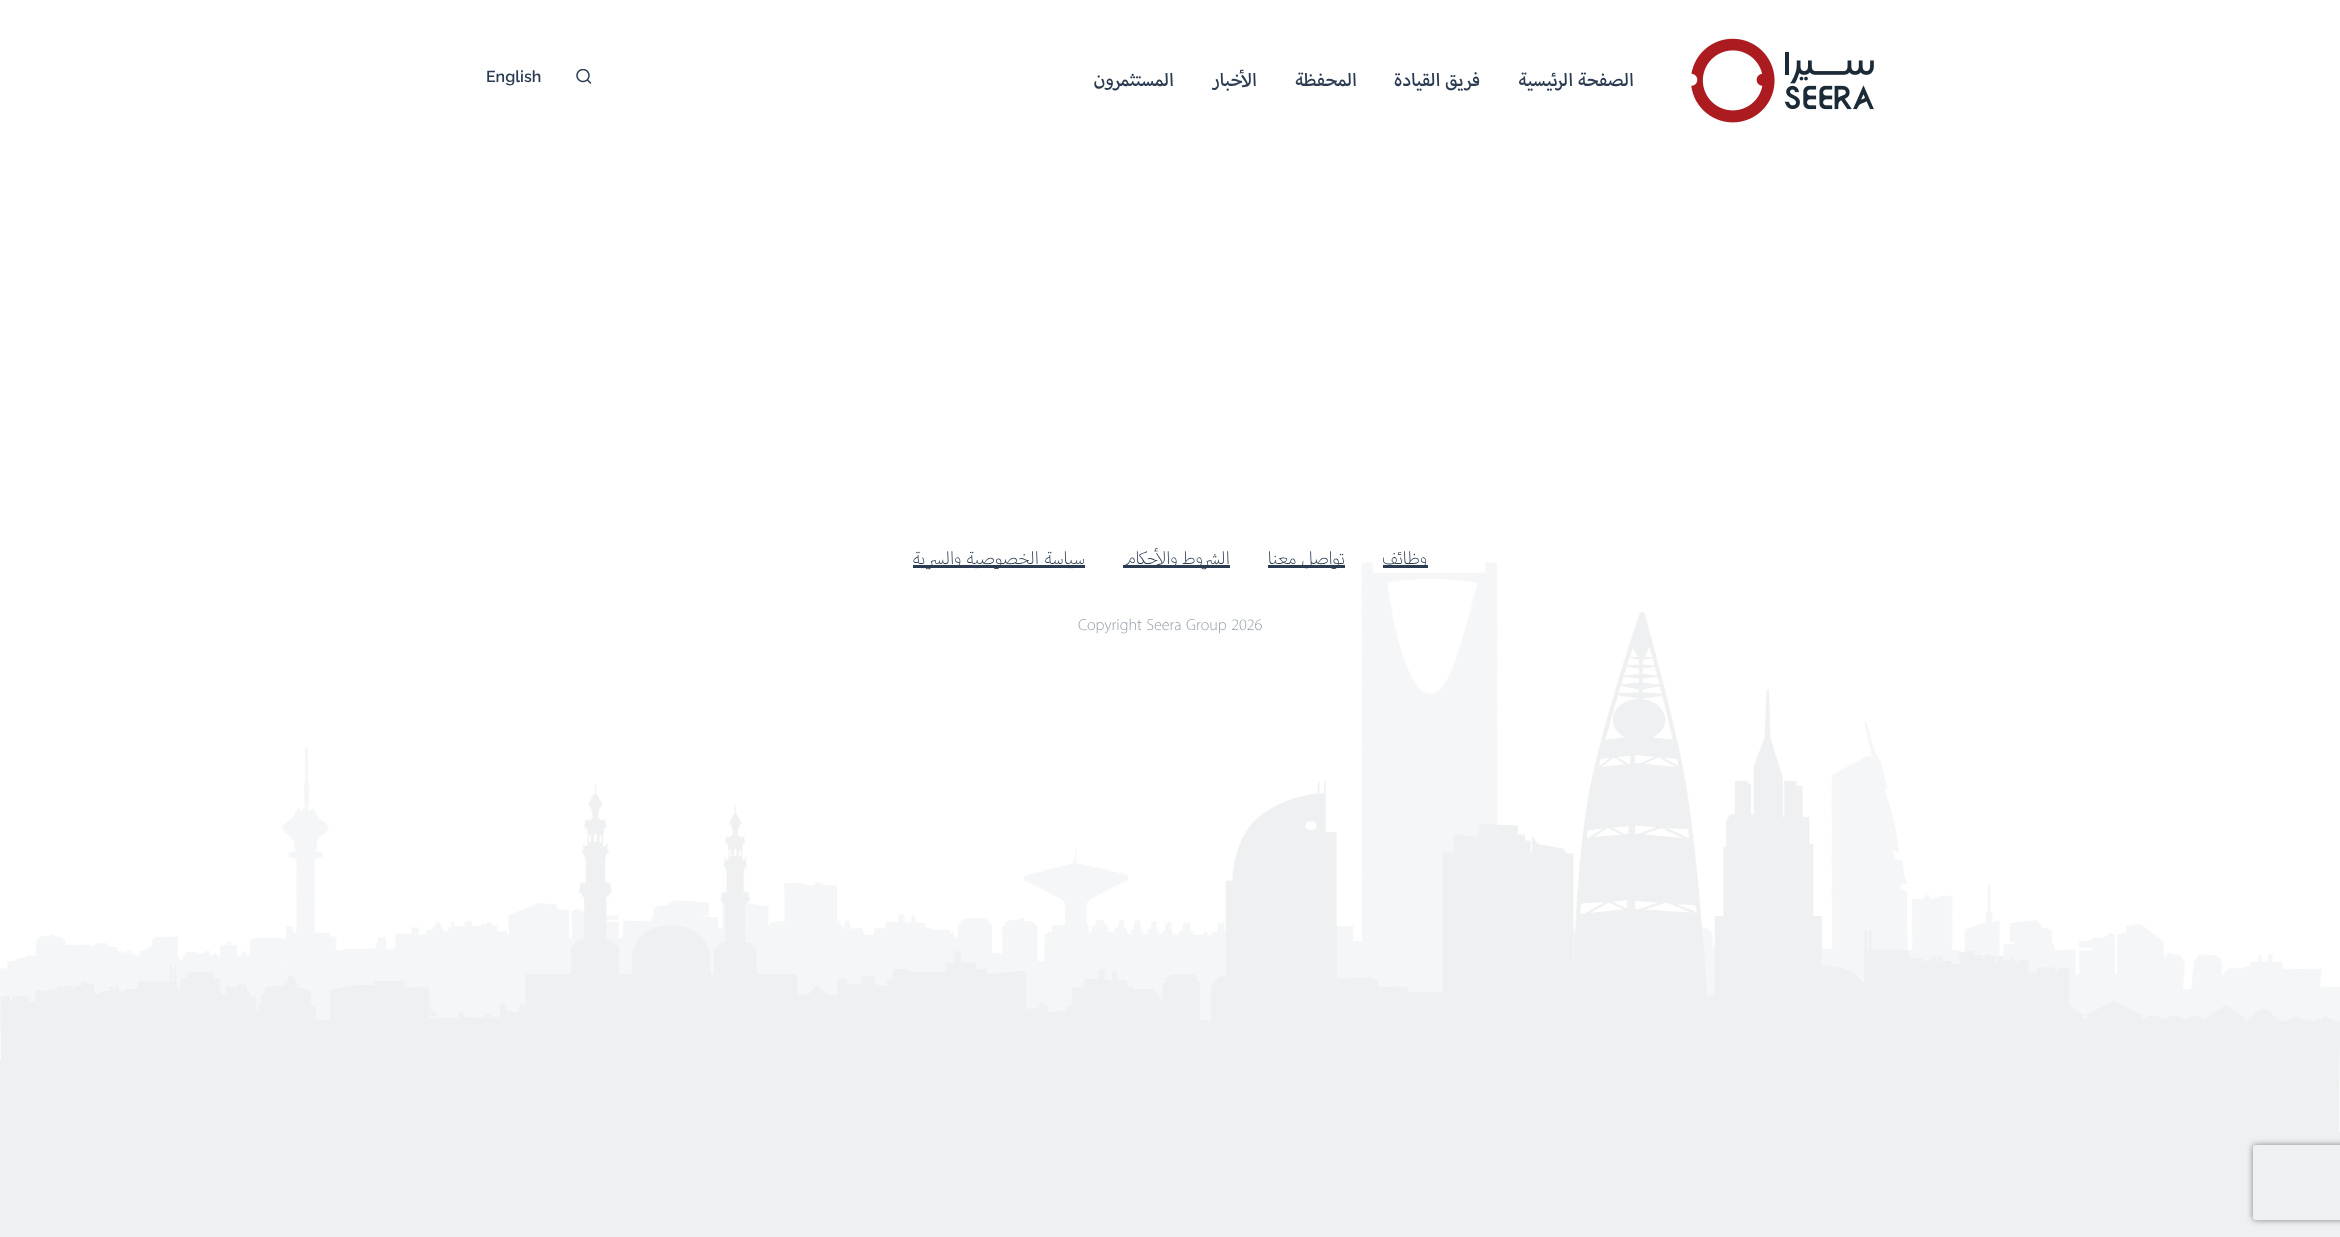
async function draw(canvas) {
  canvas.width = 2340;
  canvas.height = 1237;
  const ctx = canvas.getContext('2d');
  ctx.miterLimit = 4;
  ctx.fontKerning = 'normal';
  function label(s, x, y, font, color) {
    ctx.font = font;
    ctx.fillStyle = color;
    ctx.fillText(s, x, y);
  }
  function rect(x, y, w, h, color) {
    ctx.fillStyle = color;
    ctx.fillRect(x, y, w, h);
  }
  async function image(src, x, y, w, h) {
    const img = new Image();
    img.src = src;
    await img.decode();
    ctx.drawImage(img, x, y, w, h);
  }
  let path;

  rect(0, 0, 2340, 1237, '#fff');
  await image('assets/img1.png', 0, 562, 2340, 675);
  await image('assets/img2.png', 1691, 38, 183, 85);
  ctx.direction = 'rtl';
  label('الصفحة الرئيسية', 1634, 86, '600 25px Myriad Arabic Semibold', '#2b3c52');
  label('فريق القيادة', 1480, 86, '600 25px Myriad Arabic Semibold', '#2b3c52');
  label('المحفظة', 1357, 86, '600 25px Myriad Arabic Semibold', '#2b3c52');
  label('الأخبار', 1257, 86, '600 25px Myriad Arabic Semibold', '#2b3c52');
  label('المستثمرون', 1174, 86, '600 25px Myriad Arabic Semibold', '#2b3c52');
  await image('assets/img3.png', 576, 69, 15, 15);
  ctx.direction = 'ltr';
  label('English', 486, 82, '600 16px Raleway', '#2b3c52');
  rect(1383, 565, 45, 3, '#2b3c52');
  ctx.direction = 'rtl';
  label('وظائف', 1427, 564, '300 25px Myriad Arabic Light', '#2b3c52');
  rect(1268, 565, 77, 3, '#2b3c52');
  label('تواصل معنا', 1345, 564, '300 25px Myriad Arabic Light', '#2b3c52');
  rect(1123, 565, 107, 3, '#2b3c52');
  label('الشروط والأحكام', 1230, 564, '300 25px Myriad Arabic Light', '#2b3c52');
  rect(913, 565, 172, 3, '#2b3c52');
  label('سياسة الخصوصية والسرية', 1085, 564, '300 25px Myriad Arabic Light', '#2b3c52');
  ctx.direction = 'ltr';
  label('Copyright Seera Group 2026', 1078, 630, '300 22.5px Myriad Arabic Light', '#959ea9');
  ctx.save();
  path = new Path2D('M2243 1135H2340V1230H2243ZM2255.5 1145H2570.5C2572 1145 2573 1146 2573 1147.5V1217.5C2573 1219 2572 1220 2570.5 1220H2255.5C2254 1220 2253 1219 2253 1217.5V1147.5C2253 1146 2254 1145 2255.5 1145Z');
  ctx.clip(path, 'evenodd');
  ctx.fillStyle = '#808080';
  ctx.filter = 'blur(3px)';
  ctx.beginPath();
  ctx.roundRect(2253, 1145, 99, 75, 2.5);
  ctx.fill();
  ctx.filter = 'none';
  ctx.restore();
}

draw(document.querySelector('canvas'));
